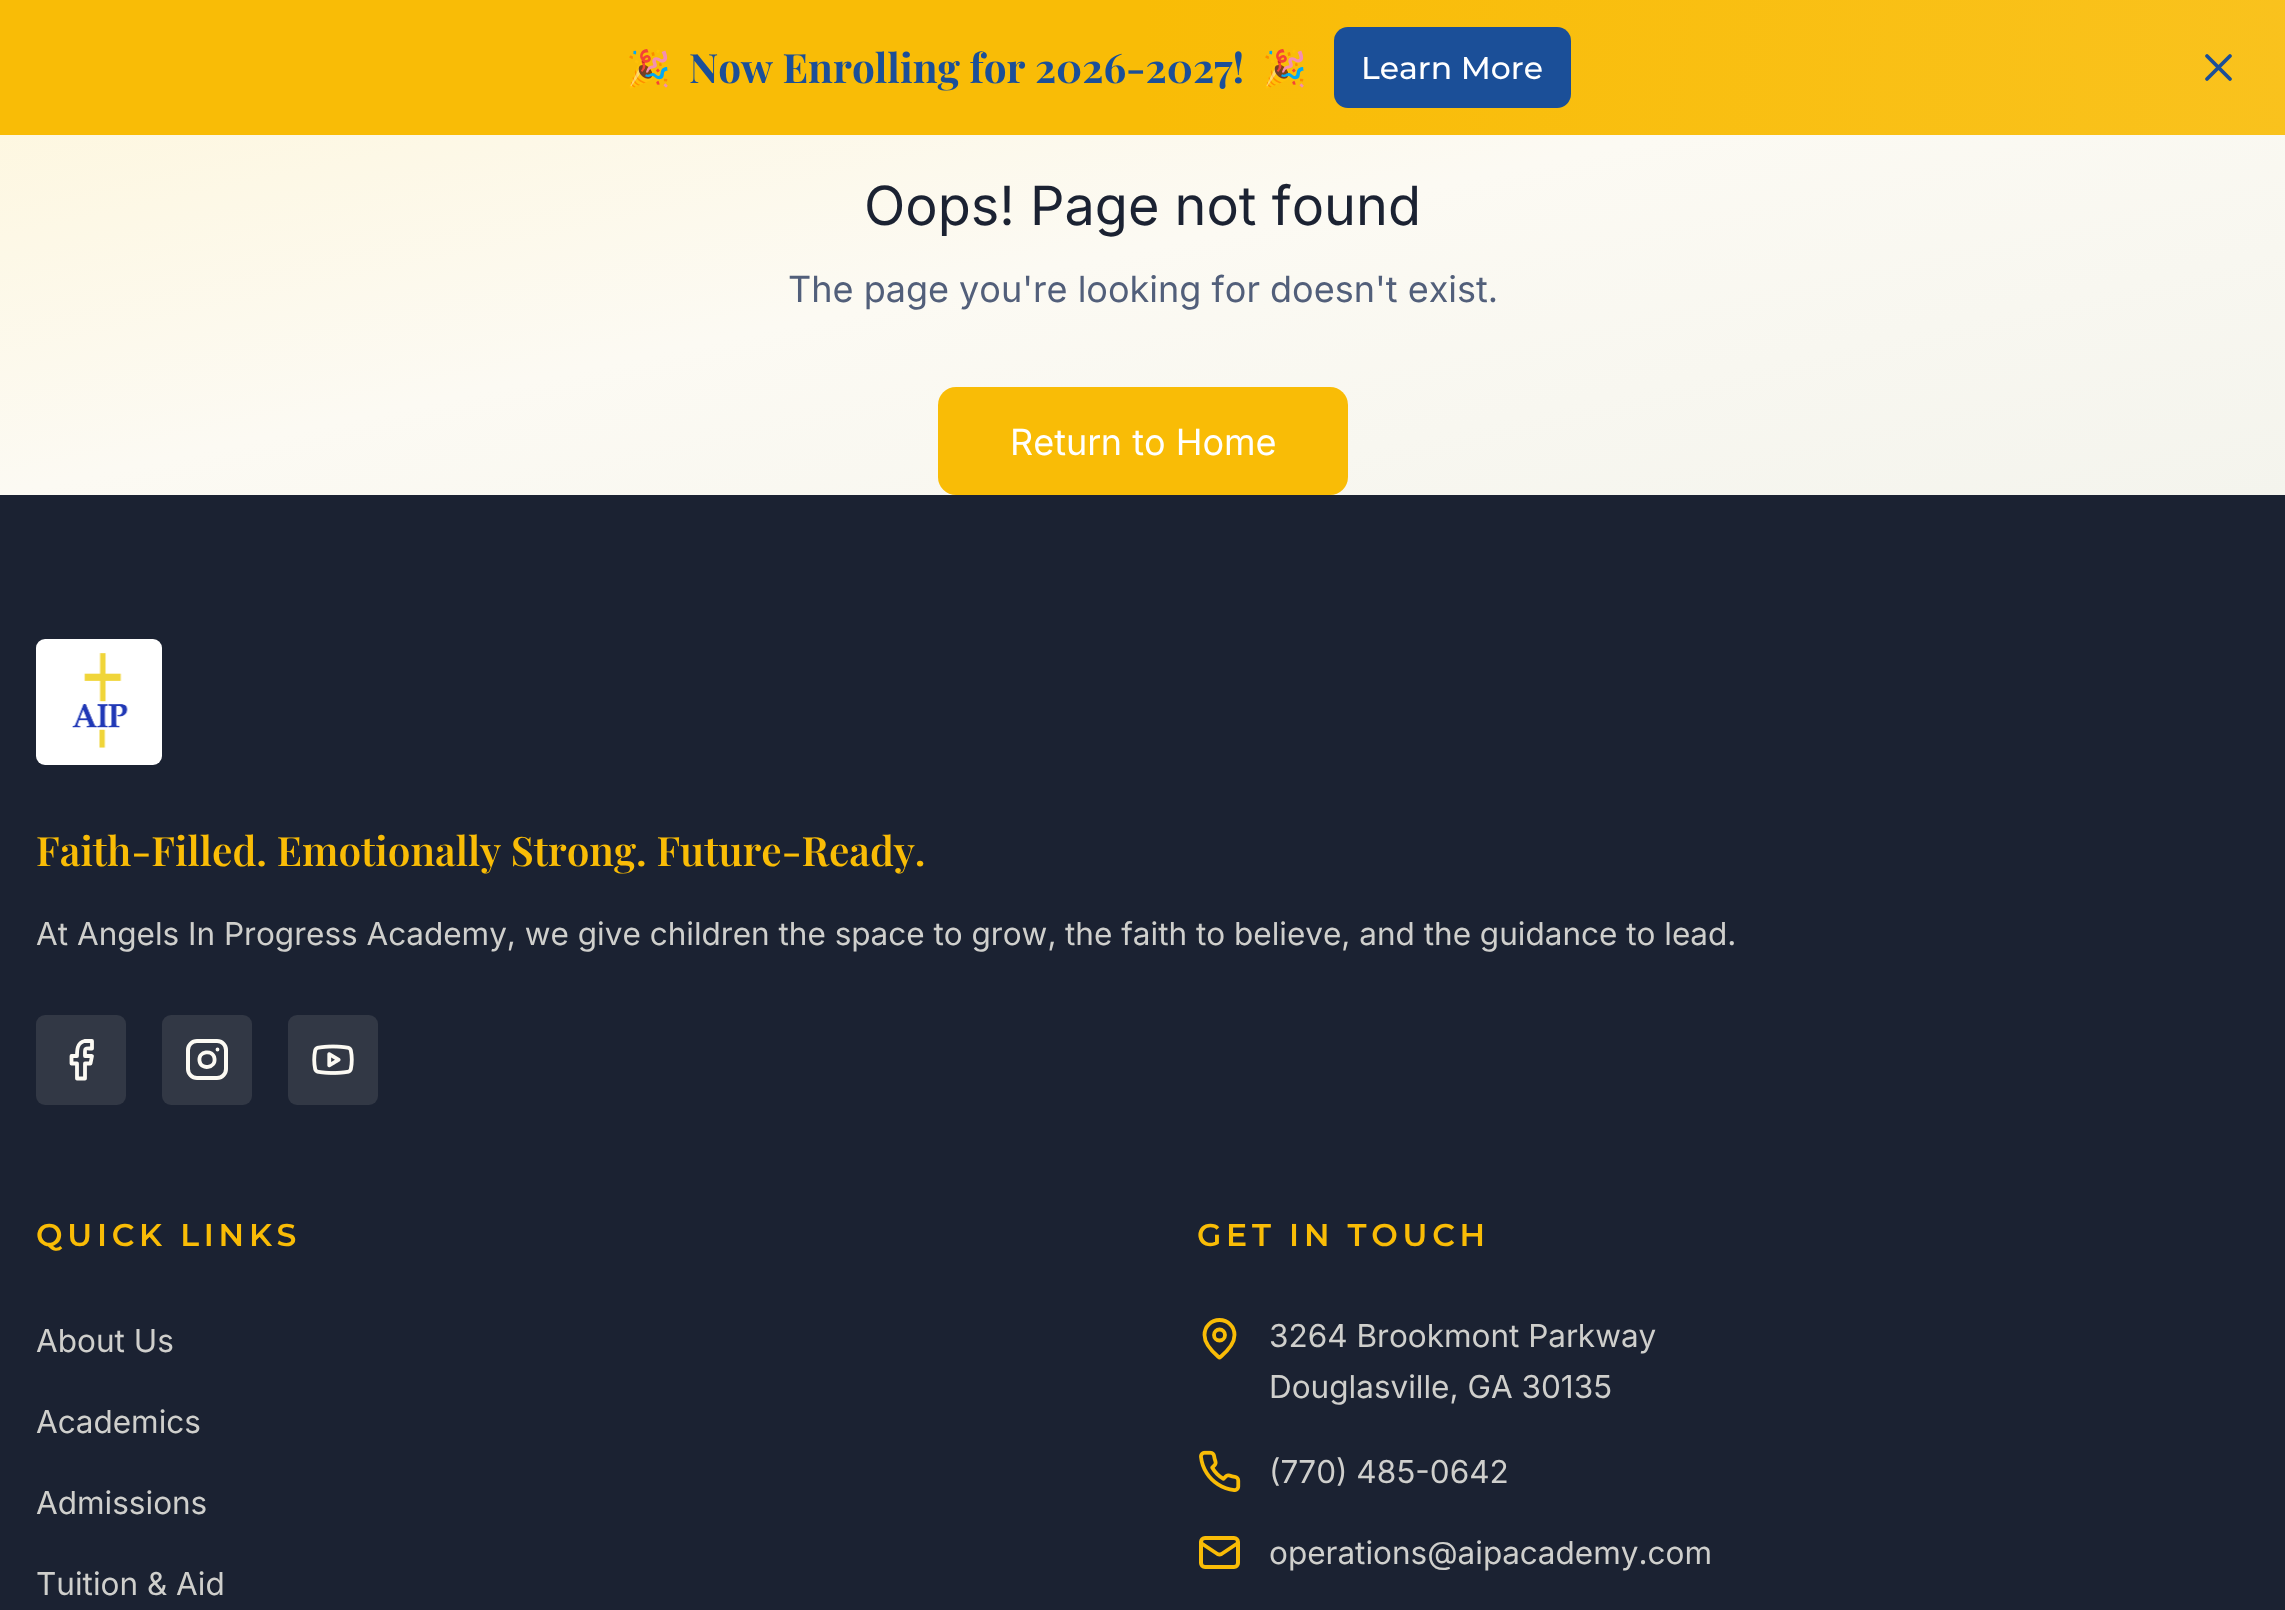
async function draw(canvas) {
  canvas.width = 2285;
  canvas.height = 1610;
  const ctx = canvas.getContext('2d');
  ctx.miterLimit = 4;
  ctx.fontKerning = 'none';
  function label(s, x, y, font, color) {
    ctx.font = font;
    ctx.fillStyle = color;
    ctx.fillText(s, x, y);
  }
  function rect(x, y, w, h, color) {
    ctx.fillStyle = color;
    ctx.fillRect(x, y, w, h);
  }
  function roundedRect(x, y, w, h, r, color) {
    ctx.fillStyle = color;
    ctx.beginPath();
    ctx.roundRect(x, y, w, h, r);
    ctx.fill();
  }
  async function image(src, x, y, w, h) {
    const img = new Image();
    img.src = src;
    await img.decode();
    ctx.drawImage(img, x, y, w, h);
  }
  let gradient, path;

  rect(0, 0, 2285, 1610, '#fff');
  gradient = ctx.createLinearGradient(1041, -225, 1245, 720);
  gradient.addColorStop(0, '#fef6da');
  gradient.addColorStop(0.5, '#fcfaf3');
  gradient.addColorStop(1, '#f4f4ed');
  ctx.fillStyle = gradient;
  ctx.fillRect(0, 0, 2285, 495);
  gradient = ctx.createLinearGradient(0, 68, 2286, 67);
  gradient.addColorStop(0, '#f9bc06');
  gradient.addColorStop(0.5, '#f9bc06');
  gradient.addColorStop(1, '#f9bc06e6');
  ctx.fillStyle = gradient;
  ctx.fillRect(0, 0, 2285, 135);
  label('🎉', 626, 81, '36px Noto Color Emoji', '#1b4f98');
  label('Now Enrolling for 2026-2027!', 689, 83, 'bold 40.5px Playfair Display', '#1b4f98');
  label('🎉', 1262, 81, '36px Noto Color Emoji', '#1b4f98');
  roundedRect(1334, 27, 237, 81, 14, '#1b4f98');
  label('Learn More', 1361, 79, '500 31.5px Montserrat', '#fff');
  path = new Path2D('M2230 56L2207 79M2207 56L2230 79');
  ctx.strokeStyle = '#1b4f98';
  ctx.lineWidth = 3.8;
  ctx.lineCap = 'round';
  ctx.lineJoin = 'round';
  ctx.stroke(path);
  label('Oops! Page not found', 864, 225, '54px Inter', '#1b2232');
  label('The page you\'re looking for doesn\'t exist.', 788, 302, '36px Inter', '#525f7a');
  roundedRect(938, 387, 410, 108, 18, '#f9bc06');
  label('Return to Home', 1010, 455, '36px Inter', '#fff');
  rect(0, 495, 2285, 1115, '#1b2232');
  roundedRect(36, 639, 126, 126, 9, '#fff');
  await image('assets/img1.png', 72, 653, 56, 95);
  label('Faith-Filled. Emotionally Strong. Future-Ready.', 36, 866, '600 40.5px Playfair Display', '#f9bc06');
  label('At Angels In Progress Academy, we give children the space to grow,', 36, 945, '31.5px Inter', '#cfcfcc');
  label('the faith to believe, and the guidance to lead.', 1065, 945, '31.5px Inter', '#cfcfcc');
  roundedRect(36, 1015, 90, 90, 9, '#323845');
  path = new Path2D('M92 1041H84.5C77 1043 77 1050 77 1056H71.5V1063.5H77V1078.5H85V1063.5H90.5L92 1056H85C85 1047.5 84 1048.5 92 1048.5Z');
  ctx.strokeStyle = '#fcfaf3';
  ctx.stroke(path);
  roundedRect(162, 1015, 90, 90, 9, '#323845');
  ctx.beginPath();
  ctx.roundRect(188, 1041, 38, 37, 9);
  ctx.lineWidth = 4;
  ctx.lineJoin = 'miter';
  ctx.stroke();
  path = new Path2D('M214.5 1058.5C216 1068 201 1070.5 199.5 1061C198 1051 213 1049 214.5 1058.5ZM217.5 1049.5H217.5');
  ctx.lineWidth = 3.8;
  ctx.lineJoin = 'round';
  ctx.stroke(path);
  roundedRect(288, 1015, 90, 90, 9, '#323845');
  await image('assets/img2.png', 312, 1044, 42, 31);
  ctx.letterSpacing = '4.75px';
  label('QUICK LINKS', 36, 1246, '600 31.5px Montserrat', '#f9bc06');
  ctx.letterSpacing = '0px';
  label('About Us', 36, 1352, '31.5px Inter', '#cfcfcc');
  label('Academics', 36, 1433, '31.5px Inter', '#cfcfcc');
  label('Admissions', 36, 1514, '31.5px Inter', '#cfcfcc');
  label('Tuition & Aid', 36, 1595, '31.5px Inter', '#cfcfcc');
  ctx.letterSpacing = '4.75px';
  label('GET IN TOUCH', 1197, 1246, '600 31.5px Montserrat', '#f9bc06');
  path = new Path2D('M1234.5 1335C1234.5 1344.5 1224 1354 1220.5 1357C1220 1357.5 1219 1357.5 1218.5 1357C1215 1354 1204.5 1344.5 1204.5 1335C1204.5 1326.5 1211 1320 1219.5 1320C1228 1320 1234.5 1326.5 1234.5 1335');
  ctx.strokeStyle = '#f9bc06';
  ctx.stroke(path);
  ctx.beginPath();
  ctx.arc(1219.5, 1335, 5.5, 0, 2 * Math.PI);
  ctx.stroke();
  ctx.letterSpacing = '0px';
  label('3264 Brookmont Parkway', 1269, 1347, '31.5px Inter', '#cfcfcc');
  label('Douglasville, GA 30135', 1269, 1398, '31.5px Inter', '#cfcfcc');
  await image('assets/img3.png', 1199, 1450, 42, 42);
  label('(770) 485-0642', 1269, 1483, '31.5px Inter', '#cfcfcc');
  ctx.beginPath();
  ctx.roundRect(1201, 1538, 37, 29, 4);
  ctx.lineWidth = 4;
  ctx.lineJoin = 'miter';
  ctx.stroke();
  path = new Path2D('M1238 1543L1221.5 1554C1220.5 1554.5 1218.5 1554.5 1217.5 1554L1201 1543');
  ctx.lineWidth = 3.8;
  ctx.lineJoin = 'round';
  ctx.stroke(path);
  label('operations@aipacademy.com', 1269, 1564, '31.5px Inter', '#cfcfcc');
}

draw(document.querySelector('canvas'));
